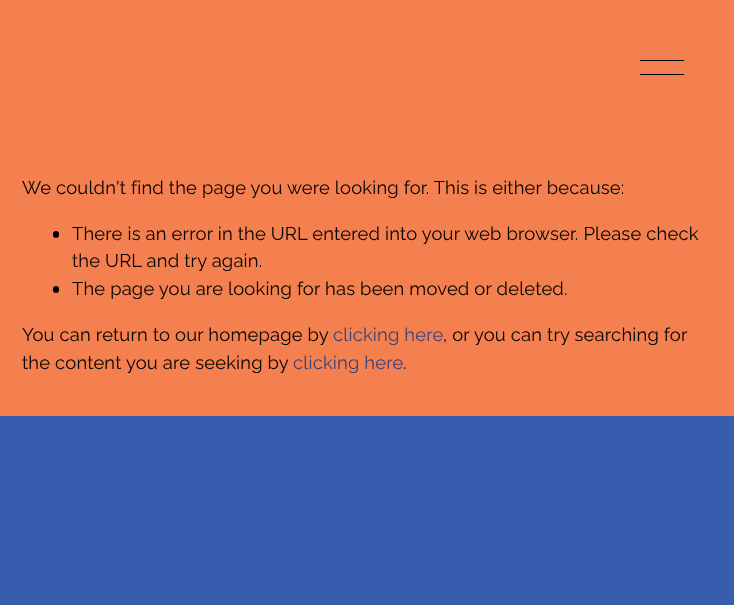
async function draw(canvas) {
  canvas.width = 734;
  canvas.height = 605;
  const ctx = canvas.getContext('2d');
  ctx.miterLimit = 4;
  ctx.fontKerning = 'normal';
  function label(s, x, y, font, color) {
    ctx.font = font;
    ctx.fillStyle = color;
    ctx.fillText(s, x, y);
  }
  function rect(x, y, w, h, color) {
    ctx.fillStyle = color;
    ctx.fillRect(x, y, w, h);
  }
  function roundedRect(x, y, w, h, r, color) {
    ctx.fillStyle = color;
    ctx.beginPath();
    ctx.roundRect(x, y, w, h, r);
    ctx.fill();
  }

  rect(0, 0, 734, 605, '#f4804f');
  rect(640, 60, 44, 1, '#000');
  rect(640, 74, 44, 1, '#000');
  ctx.letterSpacing = '0.18px';
  label('We couldn\'t find the page you were looking for. This is either because:', 22, 194, '18.4px Raleway', '#000');
  roundedRect(53, 231, 6, 7, 3, '#000');
  label('There is an error in the URL entered into your web browser. Please check', 72, 240, '18.4px Raleway', '#000');
  label('the URL and try again.', 72, 267, '18.4px Raleway', '#000');
  roundedRect(53, 286, 6, 7, 3, '#000');
  label('The page you are looking for has been moved or deleted.', 72, 295, '18.4px Raleway', '#000');
  label('You can return to our homepage by', 22, 341, '18.4px Raleway', '#000');
  label('clicking here', 333, 341, '18.4px Raleway', '#3d4176');
  label(', or you can try searching for', 443, 341, '18.4px Raleway', '#000');
  label('the content you are seeking by', 22, 369, '18.4px Raleway', '#000');
  label('clicking here', 293, 369, '18.4px Raleway', '#3d4176');
  label('.', 403, 369, '18.4px Raleway', '#000');
  rect(0, 416, 734, 189, '#385cae');
}

draw(document.querySelector('canvas'));
